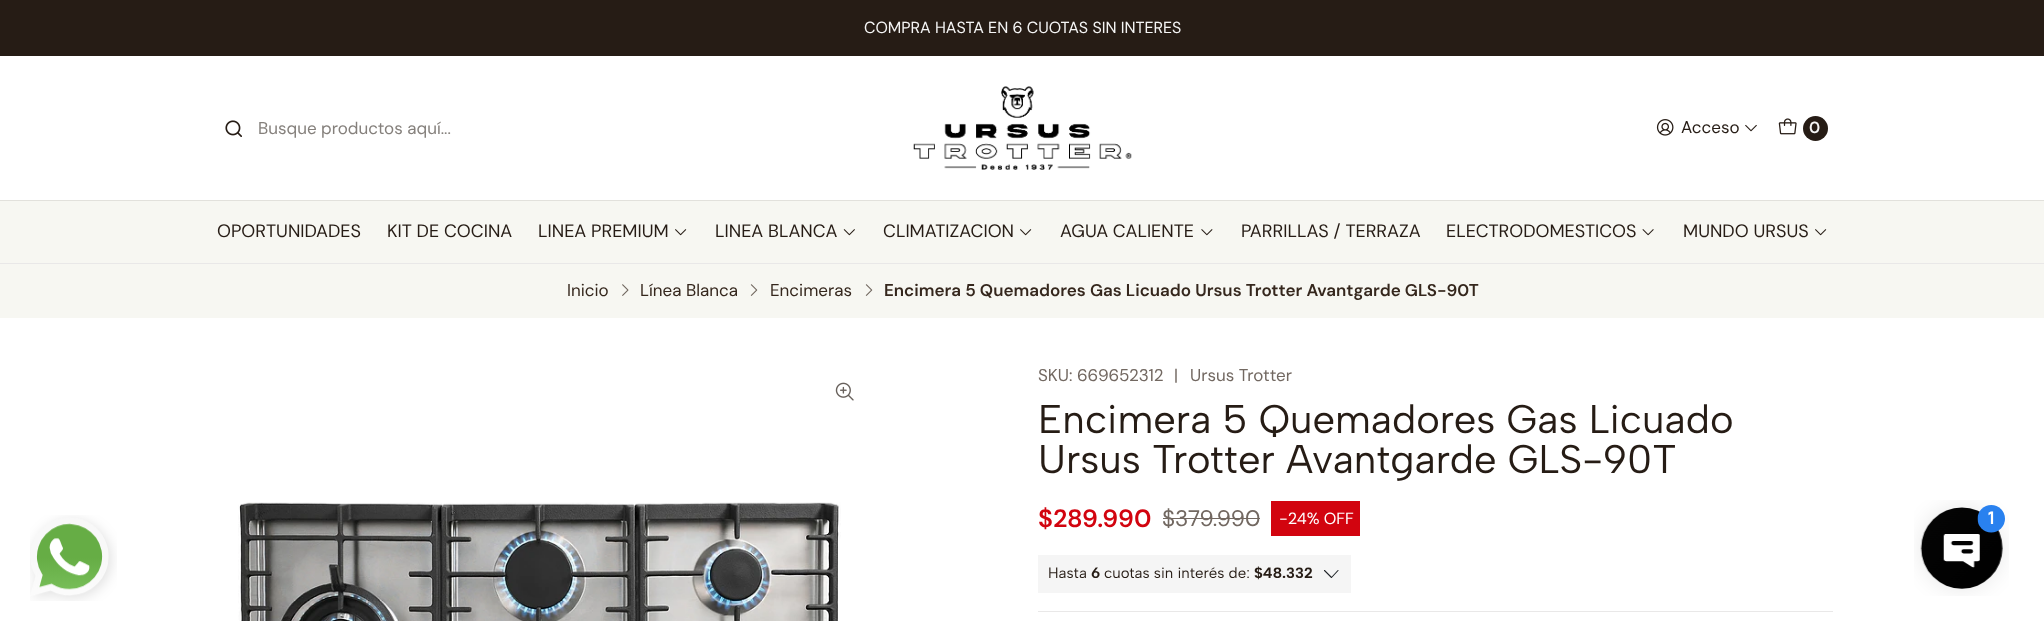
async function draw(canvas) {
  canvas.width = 2044;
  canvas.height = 621;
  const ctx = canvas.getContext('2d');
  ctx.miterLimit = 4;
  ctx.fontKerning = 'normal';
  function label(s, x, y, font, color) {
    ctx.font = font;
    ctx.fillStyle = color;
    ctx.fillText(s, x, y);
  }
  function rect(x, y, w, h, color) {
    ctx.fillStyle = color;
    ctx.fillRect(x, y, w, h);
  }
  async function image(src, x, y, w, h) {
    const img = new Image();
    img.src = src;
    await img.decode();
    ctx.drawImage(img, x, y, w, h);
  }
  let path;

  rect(0, 0, 2044, 621, '#fff');
  rect(0, 0, 2044, 56, '#261c15');
  label('COMPRA HASTA EN 6 CUOTAS SIN INTERES', 864, 33, '16px DM Sans', '#f5f5f5');
  rect(0, 263, 2044, 1, '#e9e8e8');
  await image('assets/img1.png', 225, 120, 17, 17);
  label('Busque productos aquí...', 258, 134, '17px DM Sans', '#85807c');
  await image('assets/img2.png', 913, 86, 219, 84);
  await image('assets/img3.png', 1656, 119, 18, 17);
  label('Acceso', 1681, 133, '17px DM Sans', '#261c15');
  await image('assets/img4.png', 1745, 124, 12, 8);
  await image('assets/img5.png', 1778, 118, 19, 17);
  ctx.beginPath();
  ctx.arc(1815.5, 128.5, 12.5, 0, 2 * Math.PI);
  ctx.fill();
  label('0', 1809, 133, '600 16px DM Sans', '#f5f5f5');
  rect(0, 201, 2044, 62, '#f7f7f2');
  rect(0, 200, 2044, 1, '#e2e1dc');
  label('OPORTUNIDADES', 217, 237, '18px DM Sans', '#261c15');
  label('KIT DE COCINA', 387, 237, '18px DM Sans', '#261c15');
  label('LINEA PREMIUM', 538, 237, '18px DM Sans', '#261c15');
  await image('assets/img6.png', 675, 229, 12, 7);
  label('LINEA BLANCA', 715, 237, '18px DM Sans', '#261c15');
  await image('assets/img7.png', 843, 229, 12, 7);
  label('CLIMATIZACION', 883, 237, '18px DM Sans', '#261c15');
  await image('assets/img6.png', 1020, 229, 12, 7);
  label('AGUA CALIENTE', 1060, 237, '18px DM Sans', '#261c15');
  await image('assets/img8.png', 1201, 229, 12, 7);
  label('PARRILLAS / TERRAZA', 1241, 237, '18px DM Sans', '#261c15');
  label('ELECTRODOMESTICOS', 1446, 237, '18px DM Sans', '#261c15');
  await image('assets/img9.png', 1642, 229, 12, 7);
  label('MUNDO URSUS', 1683, 237, '18px DM Sans', '#261c15');
  await image('assets/img6.png', 1815, 229, 12, 7);
  rect(0, 264, 2044, 54, '#f7f7f2');
  label('Inicio', 567, 296, '17px DM Sans', '#35271d');
  await image('assets/img10.png', 622, 284, 7, 12);
  label('Línea Blanca', 640, 296, '17px DM Sans', '#35271d');
  await image('assets/img11.png', 750, 284, 8, 12);
  label('Encimeras', 770, 296, '17px DM Sans', '#35271d');
  await image('assets/img11.png', 865, 284, 8, 12);
  label('Encimera 5 Quemadores Gas Licuado Ursus Trotter Avantgarde GLS-90T', 884, 296, '600 17px DM Sans', '#35271d');
  await image('assets/img12.png', 835, 382, 19, 19);
  await image('assets/img13.png', 238, 502, 603, 119);
  label('SKU: 669652312', 1038, 381, '17px DM Sans', '#726861');
  label('|', 1174, 381, '17px DM Sans', '#726861');
  label('Ursus Trotter', 1190, 381, '17px DM Sans', '#726861');
  label('Encimera 5 Quemadores Gas Licuado', 1038, 433, '40px Albert Sans', '#261c15');
  label('Ursus Trotter Avantgarde GLS-90T', 1038, 473, '40px Albert Sans', '#261c15');
  label('$289.990', 1038, 527, '600 25px DM Sans', '#d2040f');
  label('$379.990', 1162, 526, '22.5px DM Sans', '#726861');
  rect(1163, 518, 97, 1, '#726861');
  rect(1271, 501, 89, 35, '#d2040f');
  label('-24% OFF', 1279, 524, '16.25px DM Sans', '#fff');
  rect(1038, 555, 313, 38, '#f5f5f5');
  label('Hasta', 1048, 578, '15px Albert Sans', '#261c15');
  label('6', 1091, 578, 'bold 15px Albert Sans', '#261c15');
  label('cuotas sin interés de:', 1104, 578, '15px Albert Sans', '#261c15');
  label('$48.332', 1254, 578, 'bold 15px Albert Sans', '#261c15');
  path = new Path2D('M1324.5 570.5L1331.5 577.5L1338 570.5');
  ctx.strokeStyle = '#212529';
  ctx.lineWidth = 1.1;
  ctx.lineCap = 'round';
  ctx.lineJoin = 'round';
  ctx.stroke(path);
  rect(1038, 611, 795, 1, '#e9e8e8');
  await image('assets/img14.png', 30, 515, 87, 86);
  await image('assets/img15.png', 1914, 500, 95, 96);
}

draw(document.querySelector('canvas'));
